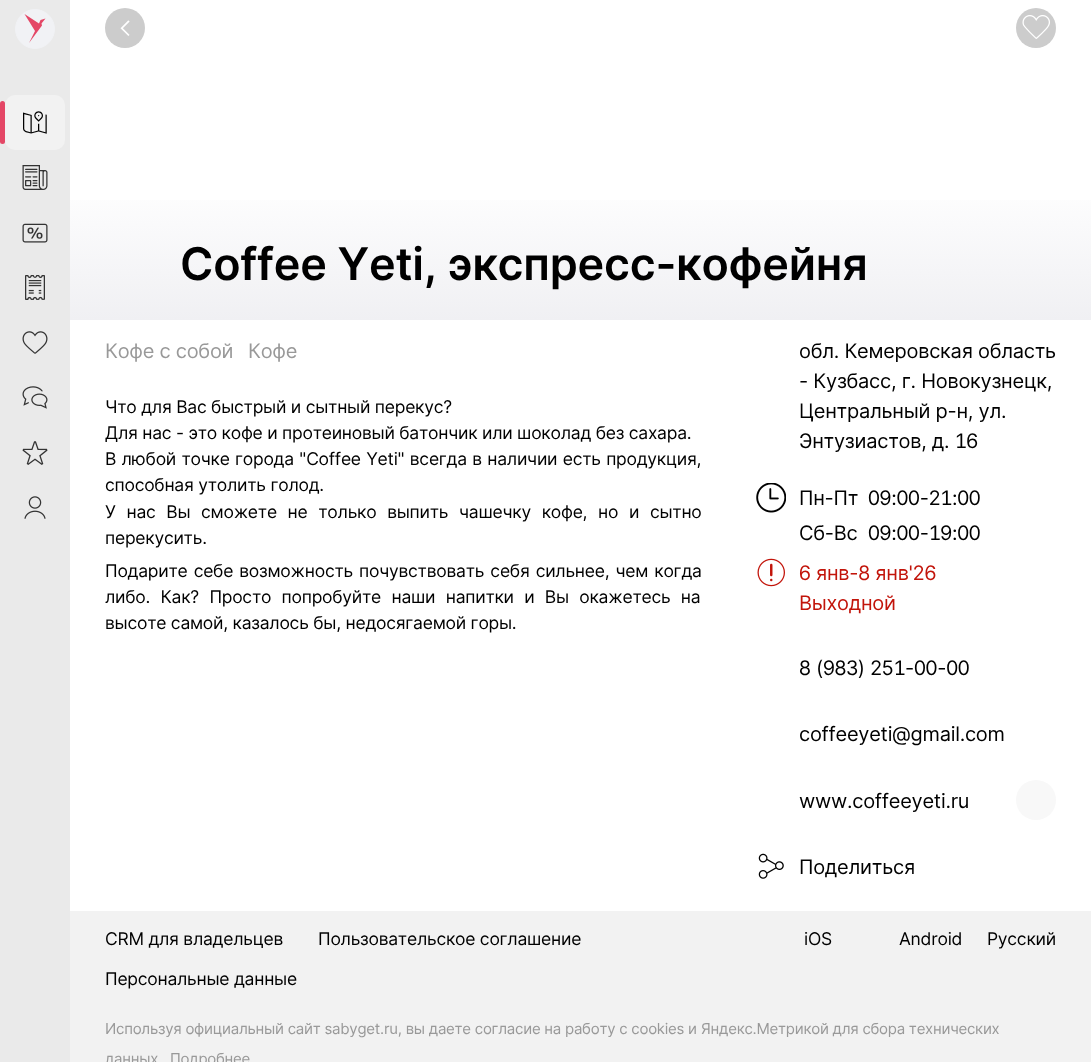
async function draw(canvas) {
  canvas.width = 1091;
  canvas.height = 1062;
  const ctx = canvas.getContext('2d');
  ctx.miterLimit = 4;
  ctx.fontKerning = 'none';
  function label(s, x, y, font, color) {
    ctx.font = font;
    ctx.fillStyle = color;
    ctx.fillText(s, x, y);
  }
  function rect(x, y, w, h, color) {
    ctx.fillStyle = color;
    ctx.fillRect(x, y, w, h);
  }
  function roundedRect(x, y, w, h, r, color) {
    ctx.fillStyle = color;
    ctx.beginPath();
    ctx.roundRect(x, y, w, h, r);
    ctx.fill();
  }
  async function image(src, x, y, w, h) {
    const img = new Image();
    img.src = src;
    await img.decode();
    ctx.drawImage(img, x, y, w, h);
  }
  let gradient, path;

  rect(0, 0, 1091, 1062, '#fff');
  rect(0, 0, 70, 1062, '#eaeaea');
  ctx.fillStyle = '#f1f2f5';
  ctx.beginPath();
  ctx.arc(35, 29, 19.5, 0, 2 * Math.PI);
  ctx.fill();
  ctx.strokeStyle = '#f1f2f5';
  ctx.stroke();
  ctx.fillStyle = '#e44766';
  path = new Path2D('M41.5 23.5L42 25.5L29 43L35 31L24.5 14L39 23.5L40.5 20L45.5 18.5ZM29 43H29Z');
  ctx.fill(path);
  roundedRect(0, 101, 5, 43, 2.5, '#e44766');
  roundedRect(5, 95, 60, 55, 10, '#f2f2f2');
  ctx.letterSpacing = '-0.25px';
  label('Map', 23, 135, '25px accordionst', '#000');
  await image('assets/img1.png', 22, 165, 26, 25);
  await image('assets/img2.png', 22, 223, 26, 20);
  await image('assets/img3.png', 25, 275, 20, 25);
  await image('assets/img4.png', 22, 331, 26, 23);
  await image('assets/img5.png', 22, 386, 26, 23);
  await image('assets/img6.png', 22, 441, 26, 24);
  await image('assets/img7.png', 24, 496, 22, 23);
  ctx.fillStyle = '#ccc';
  ctx.beginPath();
  ctx.arc(125, 28, 20, 0, 2 * Math.PI);
  ctx.fill();
  await image('assets/img8.png', 120, 20, 10, 16);
  ctx.beginPath();
  ctx.arc(1036, 28, 20, 0, 2 * Math.PI);
  ctx.fill();
  await image('assets/img9.png', 1022, 15, 28, 24);
  gradient = ctx.createLinearGradient(581, 320, 581, 0);
  gradient.addColorStop(0, '#f0f0f3');
  gradient.addColorStop(0.45, '#fff');
  ctx.fillStyle = gradient;
  ctx.fillRect(70, 200, 1021, 120);
  label('Coffee Yeti, экспресс-кофейня', 180, 280, '600 45px Inter', '#000');
  label('Кофе с собой', 105, 358, '20px Inter', '#999');
  label('Кофе', 248, 358, '20px Inter', '#999');
  label('Что для Вас быстрый и сытный перекус?', 105, 413, '17.5px Inter', '#000');
  label('Для нас - это кофе и протеиновый батончик или шоколад без сахара.', 105, 439, '17.5px Inter', '#000');
  ctx.wordSpacing = '0.75px';
  label('В любой точке города "Coffee Yeti" всегда в наличии есть продукция,', 105, 465, '17.5px Inter', '#000');
  ctx.wordSpacing = '0px';
  label('способная утолить голод.', 105, 491, '17.5px Inter', '#000');
  ctx.wordSpacing = '6.1px';
  label('У нас Вы сможете не только выпить чашечку кофе, но и сытно', 105, 518, '17.5px Inter', '#000');
  ctx.wordSpacing = '0px';
  label('перекусить.', 105, 544, '17.5px Inter', '#000');
  ctx.wordSpacing = '1.5px';
  label('Подарите себе возможность почувствовать себя сильнее, чем когда', 105, 577, '17.5px Inter', '#000');
  ctx.wordSpacing = '5.75px';
  label('либо. Как? Просто попробуйте наши напитки и Вы окажетесь на', 105, 603, '17.5px Inter', '#000');
  ctx.wordSpacing = '0px';
  label('высоте самой, казалось бы, недосягаемой горы.', 105, 629, '17.5px Inter', '#000');
  label('обл. Кемеровская область', 799, 358, '20px Inter', '#000');
  label('- Кузбасс, г. Новокузнецк,', 799, 388, '20px Inter', '#000');
  label('Центральный р-н, ул.', 799, 418, '20px Inter', '#000');
  label('Энтузиастов, д. 16', 799, 448, '20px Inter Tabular', '#000');
  await image('assets/img10.png', 756, 483, 30, 30);
  label('Пн-Пт', 799, 505, '20px Inter', '#000');
  label('09:00-21:00', 868, 505, '20px Inter Tabular', '#000');
  label('Сб-Вс', 799, 540, '20px Inter', '#000');
  label('09:00-19:00', 868, 540, '20px Inter Tabular', '#000');
  await image('assets/img11.png', 757, 558, 28, 29);
  label('6 янв-8 янв\'26', 799, 580, '20px Inter Tabular', '#c2140a');
  label('Выходной', 799, 610, '20px Inter', '#c2140a');
  label('8 (983) 251-00-00', 799, 675, '20px Inter Tabular', '#000');
  label('coffeeyeti@gmail.com', 799, 741, '20px Inter', '#000');
  label('www.coffeeyeti.ru', 799, 808, '20px Inter', '#000');
  ctx.fillStyle = '#f8f8f8';
  ctx.beginPath();
  ctx.arc(1036, 800, 20, 0, 2 * Math.PI);
  ctx.fill();
  await image('assets/img12.png', 758, 853, 26, 26);
  label('Поделиться', 799, 874, '20px Inter', '#000');
  rect(70, 911, 1021, 151, '#f2f2f2');
  label('CRM для владельцев', 105, 945, '17.5px Inter', '#000');
  label('Пользовательское соглашение', 318, 945, '17.5px Inter', '#000');
  label('Персональные данные', 105, 985, '17.5px Inter', '#000');
  label('iOS', 804, 945, '17.5px Inter', '#000');
  label('Android', 899, 945, '17.5px Inter', '#000');
  label('Русский', 987, 945, '17.5px Inter', '#000');
  label('Используя официальный сайт sabyget.ru, вы даете согласие на работу с cookies и Яндекс.Метрикой для сбора технических', 105, 1034, '15px Inter', '#999');
  label('данных', 105, 1064, '15px Inter', '#999');
  label('Подробнее', 170, 1064, '15px Inter', '#999');
}

draw(document.querySelector('canvas'));
